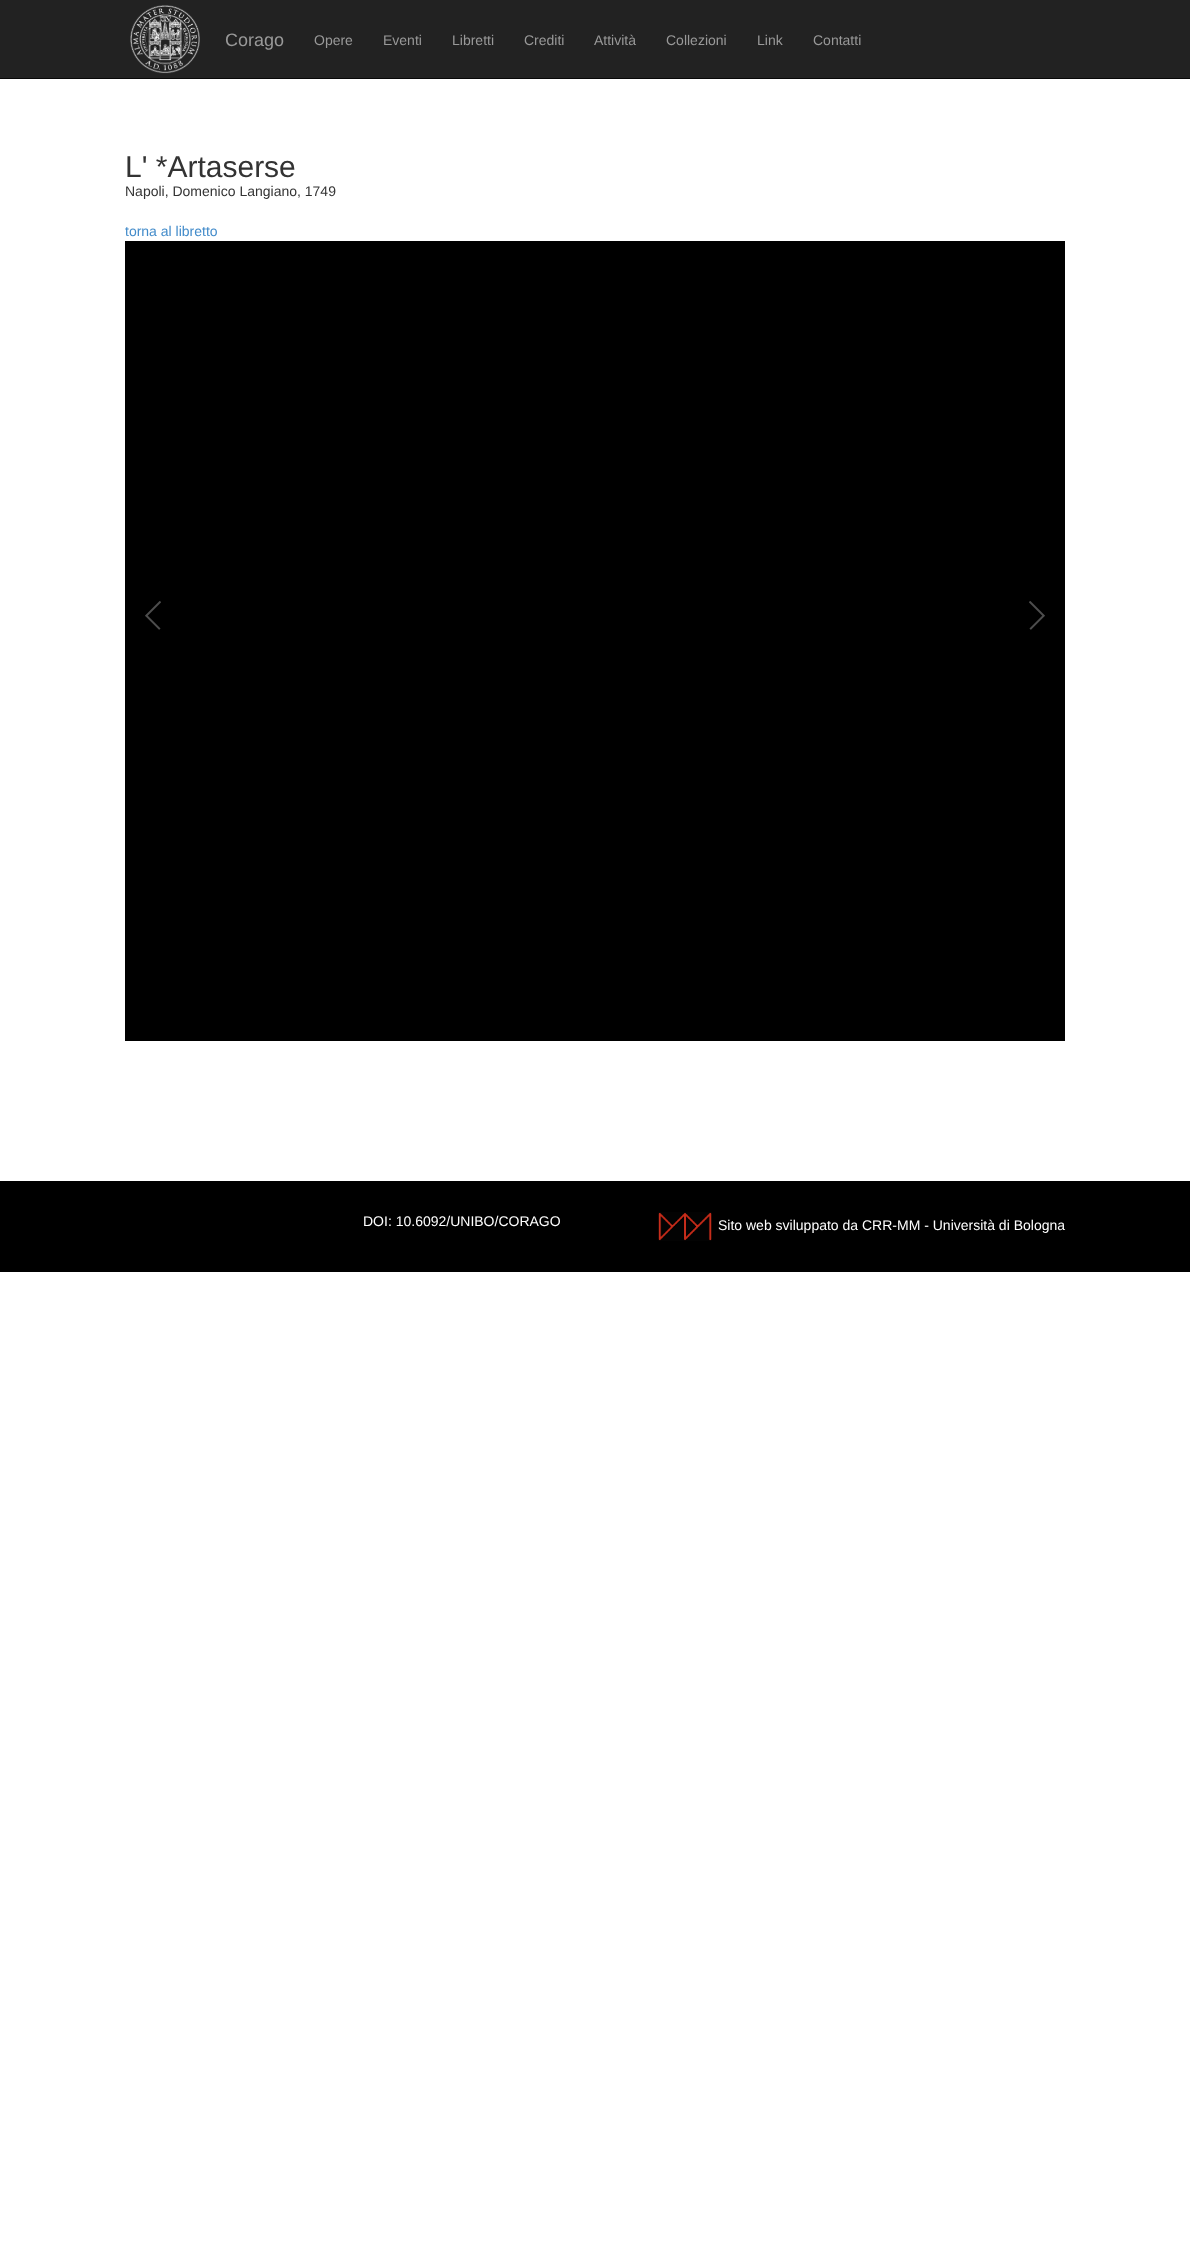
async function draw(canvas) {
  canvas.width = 1190;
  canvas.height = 2251;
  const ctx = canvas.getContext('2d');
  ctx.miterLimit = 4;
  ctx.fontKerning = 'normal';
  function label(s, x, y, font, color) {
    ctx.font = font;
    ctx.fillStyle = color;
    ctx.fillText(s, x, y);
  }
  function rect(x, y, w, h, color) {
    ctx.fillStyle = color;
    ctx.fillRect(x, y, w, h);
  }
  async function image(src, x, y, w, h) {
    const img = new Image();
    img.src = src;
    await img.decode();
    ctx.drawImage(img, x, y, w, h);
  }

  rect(0, 0, 1190, 2251, '#fff');
  rect(0, 0, 1190, 78, '#222');
  rect(0, 78, 1190, 1, '#080808');
  await image('assets/img1.png', 130, 5, 70, 69);
  label('Corago', 225, 46, '18px Liberation Sans', '#999');
  label('Opere', 314, 45, '14px Liberation Sans', '#999');
  label('Eventi', 383, 45, '14px Liberation Sans', '#999');
  label('Libretti', 452, 45, '14px Liberation Sans', '#999');
  label('Crediti', 524, 45, '14px Liberation Sans', '#999');
  label('Attività', 594, 45, '14px Liberation Sans', '#999');
  label('Collezioni', 666, 45, '14px Liberation Sans', '#999');
  label('Link', 757, 45, '14px Liberation Sans', '#999');
  label('Contatti', 813, 45, '14px Liberation Sans', '#999');
  label('L\' *Artaserse', 125, 177, '30px Liberation Sans', '#333');
  label('Napoli, Domenico Langiano, 1749', 125, 196, '14px Liberation Sans', '#333');
  label('torna al libretto', 125, 236, '14px Liberation Sans', '#428bca');
  rect(125, 241, 940, 800, '#000');
  await image('assets/img2.png', 145, 601, 16, 29);
  await image('assets/img3.png', 1029, 601, 16, 29);
  rect(0, 1181, 1190, 91, '#000');
  label('DOI: 10.6092/UNIBO/CORAGO', 363, 1226, '14px Liberation Sans', '#fff');
  await image('assets/img4.png', 658, 1212, 54, 29);
  label('Sito web sviluppato da CRR-MM - Università di Bologna', 718, 1230, '14px Liberation Sans', '#fff');
}

draw(document.querySelector('canvas'));
